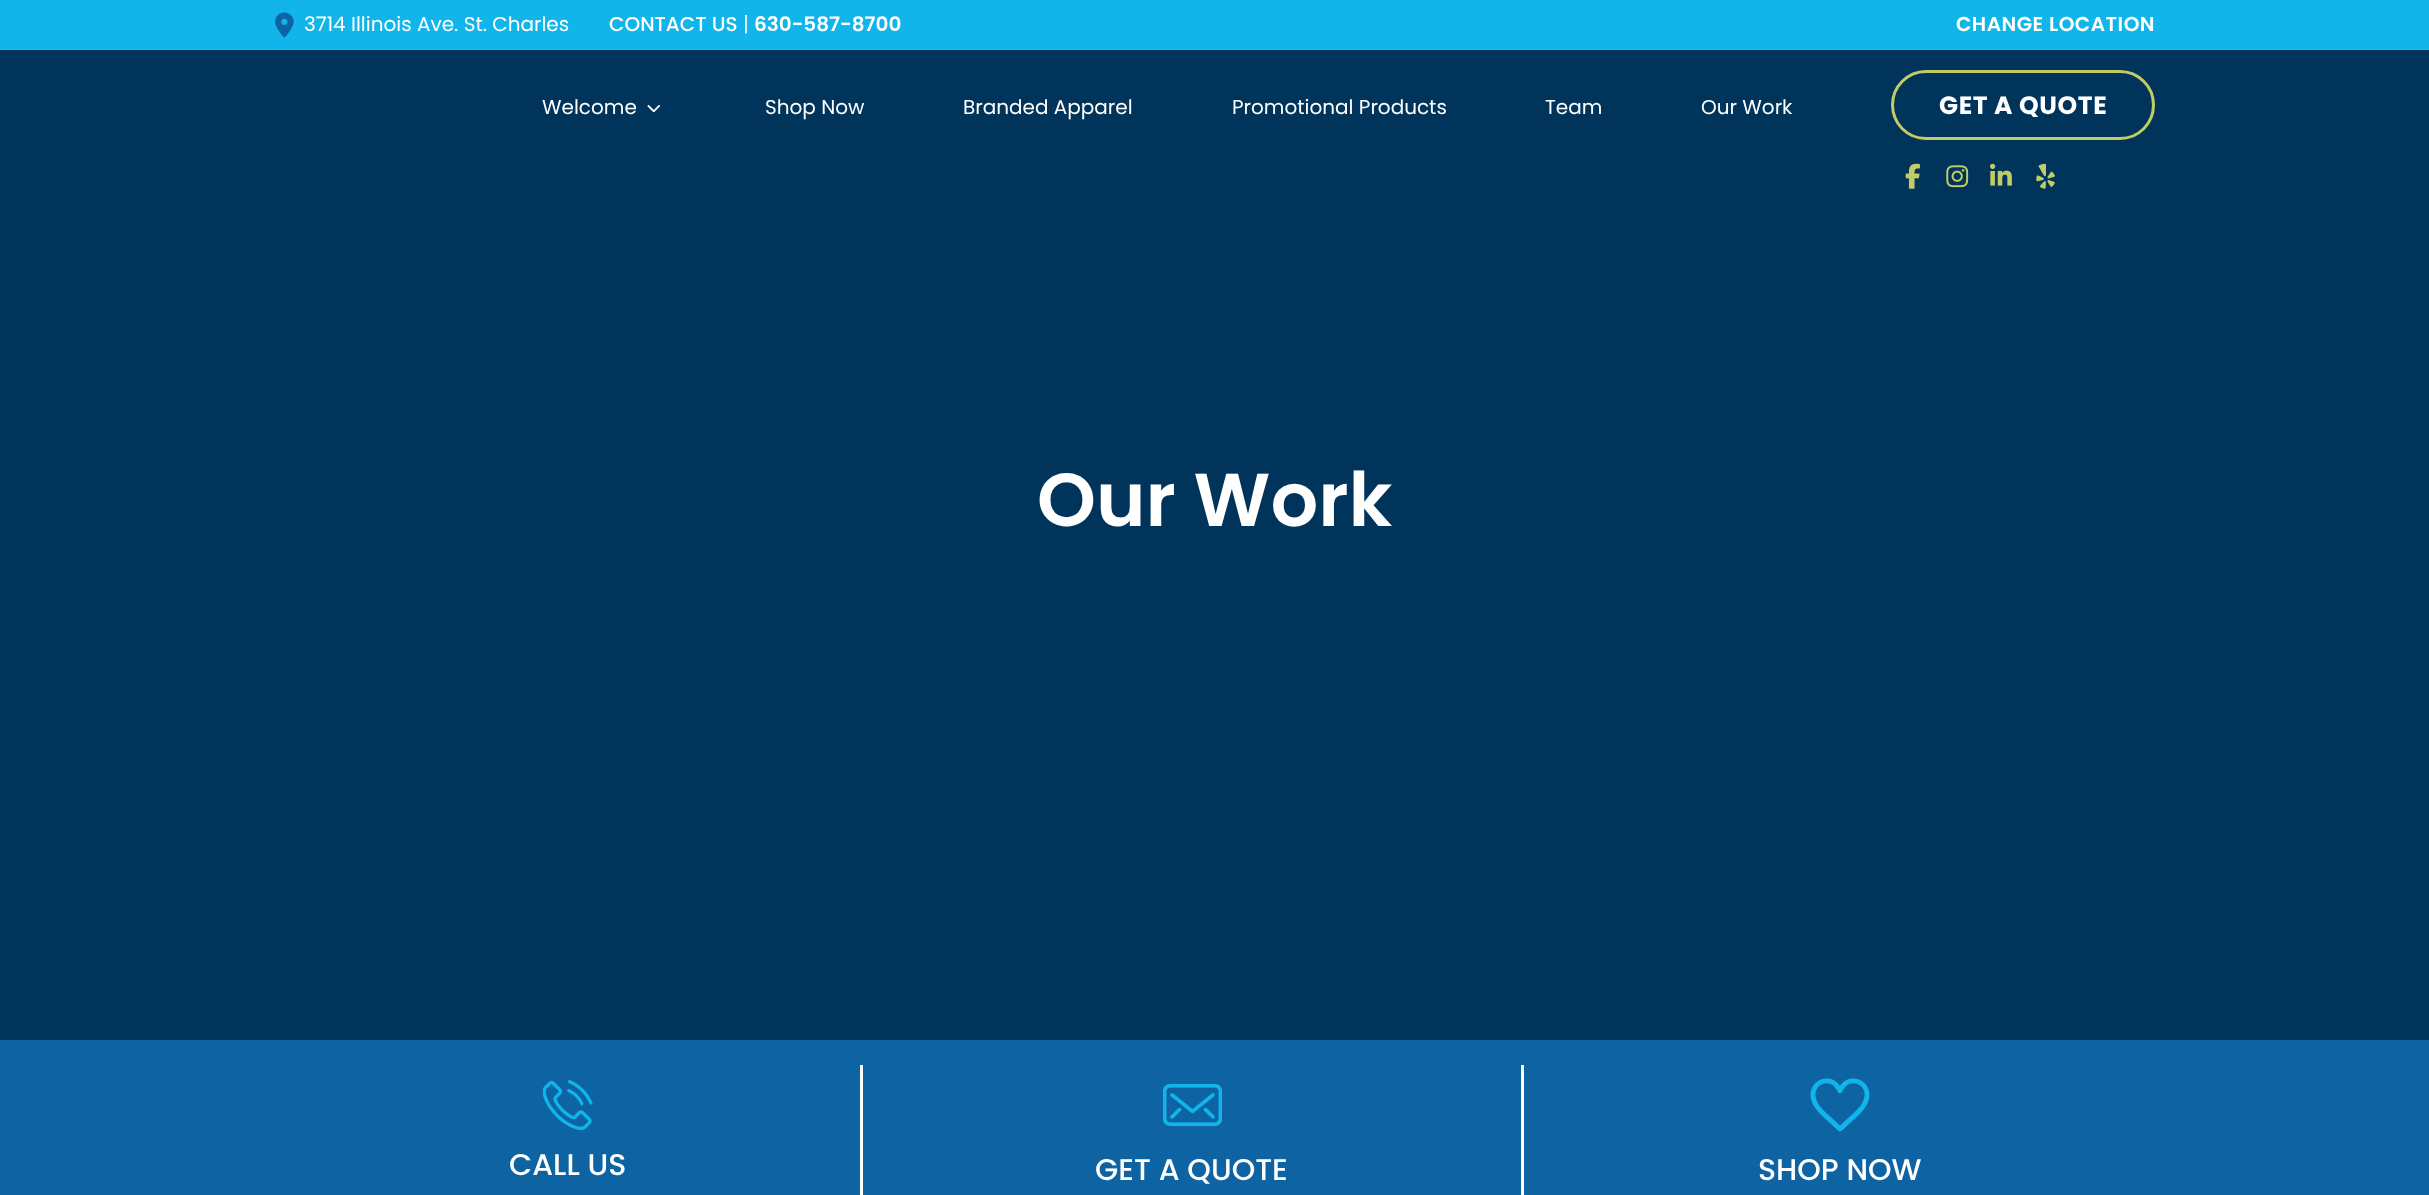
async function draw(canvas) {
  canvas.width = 2429;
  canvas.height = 1195;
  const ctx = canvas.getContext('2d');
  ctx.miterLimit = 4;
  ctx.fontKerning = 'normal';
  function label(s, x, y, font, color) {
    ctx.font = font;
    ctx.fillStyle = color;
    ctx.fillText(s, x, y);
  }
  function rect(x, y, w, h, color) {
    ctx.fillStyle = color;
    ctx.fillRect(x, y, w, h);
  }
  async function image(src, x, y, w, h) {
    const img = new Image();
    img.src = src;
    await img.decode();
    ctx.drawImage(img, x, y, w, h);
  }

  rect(0, 0, 2429, 1195, '#0e64a3');
  rect(0, 0, 2429, 50, '#11b5ea');
  await image('assets/img1.png', 275, 12, 19, 26);
  label('3714 Illinois Ave. St. Charles', 304, 31, '20px Poppins', '#fff');
  label('CONTACT US', 609, 31, '500 20px Poppins', '#fff');
  label('|', 743, 31, '20px Poppins', '#fff');
  label('630-587-8700', 754, 31, '600 20px Poppins', '#fff');
  ctx.letterSpacing = '0.5px';
  label('CHANGE LOCATION', 1956, 31, '600 20px Poppins', '#fff');
  rect(0, 50, 2429, 990, '#00345a');
  ctx.letterSpacing = '0px';
  label('Welcome', 542, 114, '20px Poppins', '#fff');
  await image('assets/img2.png', 647, 105, 13, 8);
  label('Shop Now', 765, 114, '20px Poppins', '#fff');
  label('Branded Apparel', 963, 114, '20px Poppins', '#fff');
  label('Promotional Products', 1232, 114, '20px Poppins', '#fff');
  label('Team', 1545, 114, '20px Poppins', '#fff');
  label('Our Work', 1701, 114, '20px Poppins', '#fff');
  ctx.beginPath();
  ctx.roundRect(1892.5, 71.5, 261, 67, 33.5);
  ctx.strokeStyle = '#c2cc66';
  ctx.lineWidth = 3;
  ctx.stroke();
  ctx.letterSpacing = '0.6px';
  label('GET A QUOTE', 1939, 114, 'bold 25px Poppins', '#fff');
  await image('assets/img3.png', 1905, 163, 15, 26);
  await image('assets/img4.png', 1946, 165, 23, 23);
  await image('assets/img5.png', 1990, 163, 22, 23);
  await image('assets/img6.png', 2036, 163, 19, 26);
  ctx.letterSpacing = '0px';
  label('Our Work', 1037, 526, '600 75px Poppins', '#fff');
  await image('assets/img7.png', 543, 1080, 50, 50);
  label('CALL US', 509, 1175, '500 30px Poppins', '#fff');
  rect(860, 1065, 3, 130, '#fff');
  await image('assets/img8.png', 1163, 1084, 59, 42);
  label('GET A QUOTE', 1095, 1180, '500 30px Poppins', '#fff');
  rect(1521, 1065, 3, 130, '#fff');
  await image('assets/img9.png', 1810, 1078, 60, 54);
  label('SHOP NOW', 1758, 1180, '500 30px Poppins', '#fff');
}

draw(document.querySelector('canvas'));
